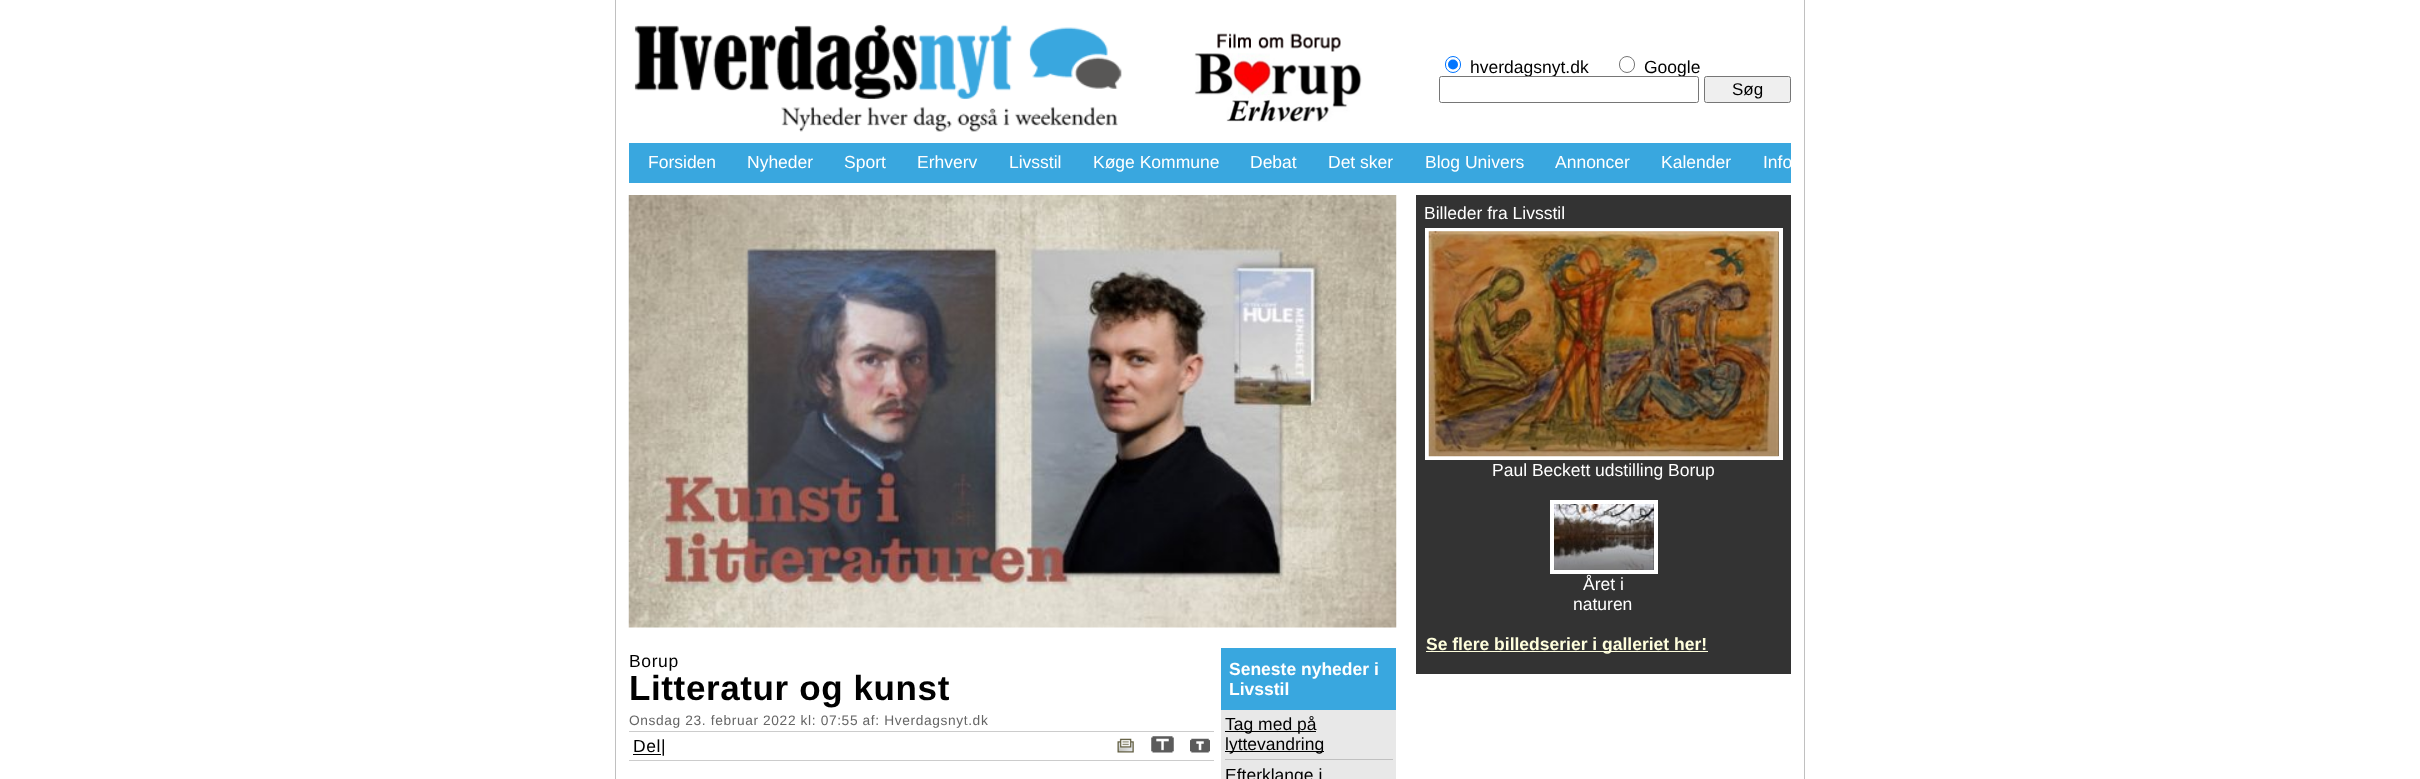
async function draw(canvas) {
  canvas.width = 2420;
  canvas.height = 779;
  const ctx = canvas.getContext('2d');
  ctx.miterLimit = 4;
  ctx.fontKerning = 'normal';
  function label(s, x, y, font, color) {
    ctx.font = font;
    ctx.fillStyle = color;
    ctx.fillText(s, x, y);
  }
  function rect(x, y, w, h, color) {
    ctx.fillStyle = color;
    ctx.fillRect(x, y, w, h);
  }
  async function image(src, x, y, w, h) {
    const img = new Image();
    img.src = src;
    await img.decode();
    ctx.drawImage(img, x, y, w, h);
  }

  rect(0, 0, 2420, 779, '#fff');
  rect(1804, 0, 1, 779, '#c0c0c0');
  rect(615, 0, 1, 779, '#c0c0c0');
  await image('assets/img1.png', 634, 24, 488, 108);
  await image('assets/img2.png', 1194, 33, 168, 89);
  ctx.beginPath();
  ctx.roundRect(1445.5, 56.5, 15, 16, 7.5);
  ctx.strokeStyle = '#0075ff';
  ctx.stroke();
  ctx.fillStyle = '#0075ff';
  ctx.beginPath();
  ctx.arc(1453, 64.5, 5, 0, 2 * Math.PI);
  ctx.fill();
  label('hverdagsnyt.dk', 1470, 73, '17.5px Liberation Sans', '#000');
  ctx.beginPath();
  ctx.roundRect(1619.5, 56.5, 15, 16, 7.5);
  ctx.strokeStyle = '#767676';
  ctx.stroke();
  label('Google', 1644, 73, '17.5px Liberation Sans', '#000');
  ctx.fillStyle = '#fff';
  ctx.beginPath();
  ctx.roundRect(1439.5, 76.5, 259, 26, 2);
  ctx.fill();
  ctx.stroke();
  ctx.fillStyle = '#efefef';
  ctx.beginPath();
  ctx.roundRect(1704.5, 76.5, 86, 26, 2);
  ctx.fill();
  ctx.stroke();
  label('Søg', 1732, 95, '17px Liberation Sans', '#000');
  rect(629, 143, 1162, 40, '#39a7df');
  label('Forsiden', 648, 168, '17.5px Liberation Sans', '#fff');
  label('Nyheder', 747, 168, '17.5px Liberation Sans', '#fff');
  label('Sport', 844, 168, '17.5px Liberation Sans', '#fff');
  label('Erhverv', 917, 168, '17.5px Liberation Sans', '#fff');
  label('Livsstil', 1009, 168, '17.5px Liberation Sans', '#fff');
  label('Køge Kommune', 1093, 168, '17.5px Liberation Sans', '#fff');
  label('Debat', 1250, 168, '17.5px Liberation Sans', '#fff');
  label('Det sker', 1328, 168, '17.5px Liberation Sans', '#fff');
  label('Blog Univers', 1425, 168, '17.5px Liberation Sans', '#fff');
  label('Annoncer', 1555, 168, '17.5px Liberation Sans', '#fff');
  label('Kalender', 1661, 168, '17.5px Liberation Sans', '#fff');
  label('Info', 1763, 168, '17.5px Liberation Sans', '#fff');
  rect(1416, 195, 375, 479, '#333');
  label('Billeder fra Livsstil', 1424, 219, '17.5px Liberation Sans', '#fff');
  ctx.strokeStyle = '#fff';
  ctx.lineWidth = 4;
  ctx.strokeRect(1427, 230, 354, 228);
  await image('assets/img3.png', 1428, 231, 351, 226);
  label('Paul Beckett udstilling Borup', 1492, 476, '17.5px Liberation Sans', '#fff');
  await image('assets/img4.png', 1554, 504, 100, 66);
  ctx.strokeRect(1552, 502, 104, 70);
  label('Året i', 1583, 590, '17.5px Liberation Sans', '#fff');
  label('naturen', 1573, 610, '17.5px Liberation Sans', '#fff');
  rect(1426, 651, 282, 1, '#ffd');
  label('Se flere billedserier i galleriet her!', 1426, 650, 'bold 17.5px Liberation Sans', '#ffd');
  await image('assets/img5.png', 628, 195, 769, 433);
  ctx.letterSpacing = '0.62px';
  label('Borup', 629, 667, '17.5px Liberation Sans', '#000');
  label('Litteratur og kunst', 629, 700, 'bold 35px Liberation Sans', '#000');
  label('Onsdag 23. februar 2022 kl: 07:55 af: Hverdagsnyt.dk', 629, 725, '13.75px Liberation Sans', '#666');
  rect(629, 731, 585, 1, '#ccc');
  rect(629, 760, 585, 1, '#ccc');
  rect(633, 754, 28, 1, '#000');
  label('Del|', 633, 752, '17.5px Liberation Sans', '#000');
  await image('assets/img6.png', 1117, 738, 17, 15);
  await image('assets/img7.png', 1151, 736, 23, 17);
  await image('assets/img8.png', 1190, 738, 20, 15);
  rect(1221, 648, 175, 62, '#39a7df');
  ctx.letterSpacing = '0px';
  label('Seneste nyheder i', 1229, 675, 'bold 17.5px Liberation Sans', '#fff');
  label('Livsstil', 1229, 695, 'bold 17.5px Liberation Sans', '#fff');
  rect(1221, 710, 175, 69, '#e8e8e8');
  rect(1225, 731, 91, 1, '#000');
  label('Tag med på', 1225, 730, '17.5px Liberation Sans', '#000');
  rect(1225, 751, 99, 1, '#000');
  label('lyttevandring', 1225, 750, '17.5px Liberation Sans', '#000');
  rect(1225, 759, 168, 1, '#c0c0c0');
  label('Efterklange i', 1225, 781, '17.5px Liberation Sans', '#000');
}

draw(document.querySelector('canvas'));
